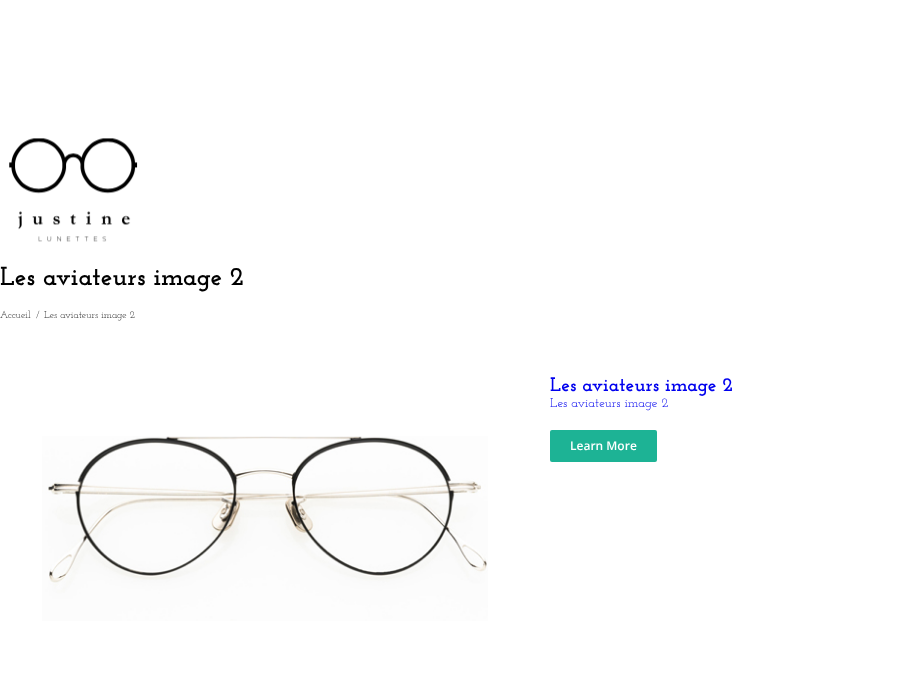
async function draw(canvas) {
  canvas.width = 913;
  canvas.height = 689;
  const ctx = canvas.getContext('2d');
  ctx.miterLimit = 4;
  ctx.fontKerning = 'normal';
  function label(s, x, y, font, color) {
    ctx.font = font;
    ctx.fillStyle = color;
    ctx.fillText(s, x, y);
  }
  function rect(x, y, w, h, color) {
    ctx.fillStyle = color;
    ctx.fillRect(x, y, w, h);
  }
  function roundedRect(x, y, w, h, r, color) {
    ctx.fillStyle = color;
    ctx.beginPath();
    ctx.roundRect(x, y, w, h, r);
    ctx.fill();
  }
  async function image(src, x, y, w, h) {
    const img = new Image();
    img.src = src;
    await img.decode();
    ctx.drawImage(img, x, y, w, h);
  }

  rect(0, 0, 913, 689, '#fff');
  await image('assets/img1.png', 9, 138, 129, 104);
  label('Les aviateurs image 2', 0, 285, 'bold 26px Josefin Slab', '#000');
  label('Accueil', 0, 318, '10px Josefin Slab', '#333');
  label('/', 36, 318, '10px Josefin Slab', '#333');
  label('Les aviateurs image 2', 44, 318, '10px Josefin Slab', '#333');
  label('Les aviateurs image 2', 550, 391, 'bold 19.5px Josefin Slab', '#00e');
  label('Les aviateurs image 2', 550, 407, '13px Josefin Slab', '#00e');
  roundedRect(550, 430, 107, 32, 2, '#1db395');
  label('Learn More', 570, 450, '600 12px Open Sans', '#fff');
  await image('assets/img2.png', 42, 436, 446, 185);
}

draw(document.querySelector('canvas'));
